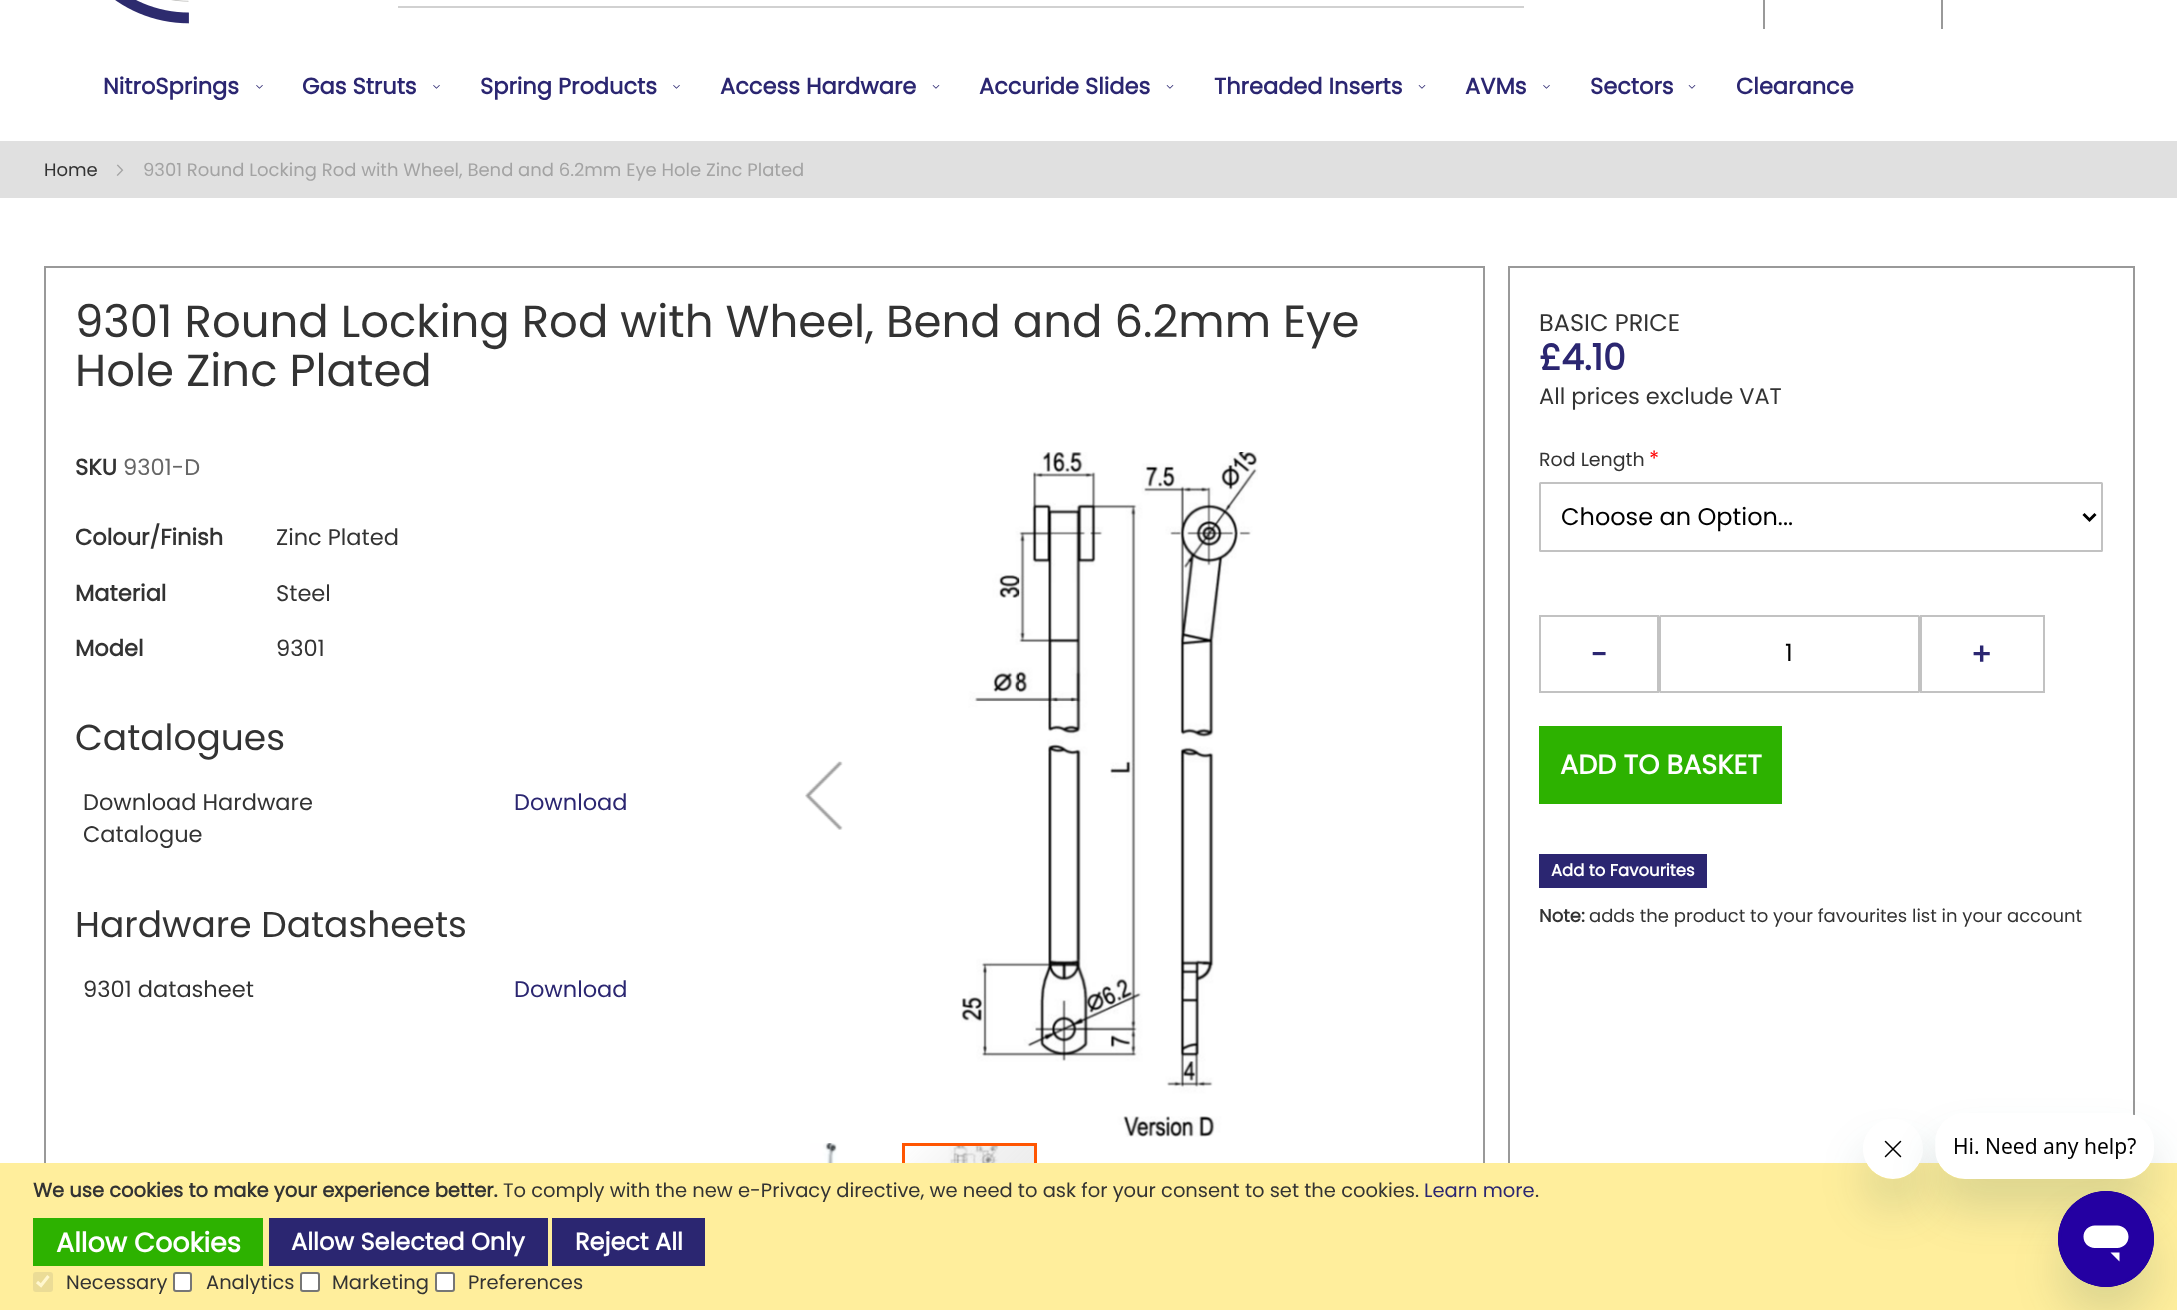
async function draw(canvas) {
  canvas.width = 2177;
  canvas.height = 1310;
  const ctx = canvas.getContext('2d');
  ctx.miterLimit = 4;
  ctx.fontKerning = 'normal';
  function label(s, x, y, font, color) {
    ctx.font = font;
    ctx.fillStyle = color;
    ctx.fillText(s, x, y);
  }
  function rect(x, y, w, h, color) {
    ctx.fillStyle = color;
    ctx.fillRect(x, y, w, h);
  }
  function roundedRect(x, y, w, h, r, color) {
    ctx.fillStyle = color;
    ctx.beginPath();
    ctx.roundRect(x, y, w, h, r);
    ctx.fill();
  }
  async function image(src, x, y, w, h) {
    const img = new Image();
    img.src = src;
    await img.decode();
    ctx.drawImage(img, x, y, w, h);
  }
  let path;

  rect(0, 0, 2177, 1310, '#fff');
  await image('assets/img1.png', 115, 0, 74, 24);
  rect(398, 6, 1126, 2, '#d1d1d1');
  rect(1763, 0, 2, 29, '#999');
  rect(1941, 0, 2, 29, '#999');
  label('NitroSprings', 103, 94, 'bold 22.5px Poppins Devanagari', '#2b2671');
  await image('assets/img2.png', 256, 85, 7, 4);
  label('Gas Struts', 302, 94, 'bold 22.5px Poppins Devanagari', '#2b2671');
  await image('assets/img2.png', 433, 85, 7, 4);
  label('Spring Products', 480, 94, 'bold 22.5px Poppins Devanagari', '#2b2671');
  await image('assets/img2.png', 673, 85, 7, 4);
  label('Access Hardware', 720, 94, 'bold 22.5px Poppins Devanagari', '#2b2671');
  await image('assets/img3.png', 932, 85, 8, 4);
  label('Accuride Slides', 979, 94, 'bold 22.5px Poppins Devanagari', '#2b2671');
  await image('assets/img3.png', 1166, 85, 8, 4);
  label('Threaded Inserts', 1214, 94, 'bold 22.5px Poppins Devanagari', '#2b2671');
  await image('assets/img3.png', 1418, 85, 8, 4);
  label('AVMs', 1465, 94, 'bold 22.5px Poppins Devanagari', '#2b2671');
  await image('assets/img2.png', 1543, 85, 7, 4);
  label('Sectors', 1590, 94, 'bold 22.5px Poppins Devanagari', '#2b2671');
  await image('assets/img3.png', 1688, 85, 8, 4);
  label('Clearance', 1736, 94, 'bold 22.5px Poppins Devanagari', '#2b2671');
  rect(0, 141, 2177, 57, '#e0e0e0');
  label('Home', 44, 176, '18px Poppins Devanagari', '#333');
  await image('assets/img4.png', 116, 164, 8, 12);
  label('9301 Round Locking Rod with Wheel, Bend and 6.2mm Eye Hole Zinc Plated', 143, 176, '18px Poppins Devanagari', '#a3a3a3');
  ctx.strokeStyle = '#999';
  ctx.lineWidth = 2;
  ctx.strokeRect(45, 267, 1439, 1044);
  label('9301 Round Locking Rod with Wheel, Bend and 6.2mm Eye', 75, 337, '45px Poppins Devanagari', '#333');
  label('Hole Zinc Plated', 75, 386, '45px Poppins Devanagari', '#333');
  label('SKU', 75, 475, 'bold 22.5px Poppins Devanagari', '#333');
  label('9301-D', 123, 475, '22.5px Poppins Devanagari', '#666');
  label('Colour/Finish', 75, 545, 'bold 22.5px Poppins Devanagari', '#333');
  label('Zinc Plated', 276, 545, '22.5px Poppins Devanagari', '#333');
  label('Material', 75, 601, 'bold 22.5px Poppins Devanagari', '#333');
  label('Steel', 276, 601, '22.5px Poppins Devanagari', '#333');
  label('Model', 75, 656, 'bold 22.5px Poppins Devanagari', '#333');
  label('9301', 276, 656, '22.5px Poppins Devanagari', '#333');
  label('Catalogues', 75, 750, '36px Poppins Devanagari', '#333');
  label('Download Hardware', 83, 810, '22.5px Poppins Devanagari', '#333');
  label('Catalogue', 83, 842, '22.5px Poppins Devanagari', '#333');
  label('Download', 514, 810, '22.5px Poppins Devanagari', '#2b2671');
  label('Hardware Datasheets', 75, 937, '36px Poppins Devanagari', '#333');
  label('9301 datasheet', 83, 997, '22.5px Poppins Devanagari', '#333');
  label('Download', 514, 997, '22.5px Poppins Devanagari', '#2b2671');
  await image('assets/img5.png', 805, 761, 38, 69);
  await image('assets/img6.png', 961, 452, 297, 685);
  await image('assets/img7.png', 764, 1143, 135, 20);
  await image('assets/img8.png', 905, 1146, 129, 17);
  ctx.strokeStyle = '#ff5501';
  ctx.lineWidth = 3;
  ctx.strokeRect(903.5, 1144.5, 132, 132);
  ctx.strokeStyle = '#999';
  ctx.lineWidth = 2;
  ctx.strokeRect(1509, 267, 625, 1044);
  label('BASIC PRICE', 1539, 331, '24px Poppins Devanagari', '#333');
  label('£4.10', 1539, 370, 'bold 36px Poppins Devanagari', '#2b2671');
  label('All prices exclude VAT', 1539, 404, '22.5px Poppins Devanagari', '#333');
  label('Rod Length', 1539, 466, '19px Poppins Devanagari', '#333');
  label('*', 1649, 466, '21px Poppins Devanagari', '#f00');
  ctx.beginPath();
  ctx.roundRect(1540, 483, 562, 68, 0.5);
  ctx.strokeStyle = '#c2c2c2';
  ctx.stroke();
  path = new Path2D('M2083.5 514L2089.5 520L2095.5 514');
  ctx.strokeStyle = '#000';
  ctx.lineWidth = 3;
  ctx.stroke(path);
  label('Choose an Option...', 1561, 525, '24px Poppins Devanagari', '#000');
  ctx.strokeStyle = '#c2c2c2';
  ctx.lineWidth = 2;
  ctx.strokeRect(1540, 616, 118, 76);
  label('-', 1591, 665, 'bold 30px Poppins Devanagari', '#2b2671');
  ctx.beginPath();
  ctx.roundRect(1660, 616, 259, 76, 0.5);
  ctx.stroke();
  label('1', 1785, 661, '24px Poppins Devanagari', '#000');
  ctx.strokeRect(1921, 616, 123, 76);
  label('+', 1971, 665, 'bold 30px Poppins Devanagari', '#2b2671');
  rect(1539, 726, 243, 78, '#2db200');
  label('ADD TO BASKET', 1560, 774, 'bold 27px Poppins Devanagari', '#fff');
  rect(1539, 854, 168, 34, '#2b2671');
  label('Add to Favourites', 1551, 876, 'bold 16.5px Poppins Devanagari', '#fff');
  label('Note:', 1539, 922, 'bold 18px Poppins Devanagari', '#333');
  label('adds the product to your favourites list in your account', 1589, 922, '18px Poppins Devanagari', '#333');
  rect(0, 1163, 2177, 147, '#ffee9c');
  label('We use cookies to make your experience better.', 33, 1197, 'bold 19.5px Poppins Devanagari', '#333');
  label('To comply with the new e-Privacy directive, we need to ask for your consent to set the cookies.', 503, 1197, '19.5px Poppins Devanagari', '#333');
  label('Learn more', 1424, 1197, '19.5px Poppins Devanagari', '#2b2671');
  label('.', 1535, 1197, '19.5px Poppins Devanagari', '#333');
  rect(33, 1218, 230, 48, '#2db200');
  label('Allow Cookies', 56, 1252, 'bold 27px Poppins Devanagari', '#fff');
  rect(269, 1218, 279, 48, '#2b2671');
  label('Allow Selected Only', 291, 1250, 'bold 24px Poppins Devanagari', '#fff');
  rect(552, 1218, 153, 48, '#2b2671');
  label('Reject All', 575, 1250, 'bold 24px Poppins Devanagari', '#fff');
  roundedRect(33, 1272, 20, 20, 3, '#ebdc96');
  path = new Path2D('M37 1282L41 1285.5L48.5 1276');
  ctx.strokeStyle = '#fff7ce';
  ctx.lineWidth = 3.1;
  ctx.stroke(path);
  label('Necessary', 66, 1289, '19.5px Poppins Devanagari', '#333');
  ctx.fillStyle = '#fff';
  ctx.beginPath();
  ctx.roundRect(174, 1273, 17, 18, 2);
  ctx.fill();
  ctx.strokeStyle = '#767676';
  ctx.lineWidth = 2;
  ctx.stroke();
  label('Analytics', 206, 1289, '19.5px Poppins Devanagari', '#333');
  ctx.fillStyle = '#fff';
  ctx.beginPath();
  ctx.roundRect(301, 1273, 18, 18, 2);
  ctx.fill();
  ctx.stroke();
  label('Marketing', 332, 1289, '19.5px Poppins Devanagari', '#333');
  ctx.fillStyle = '#fff';
  ctx.beginPath();
  ctx.roundRect(436, 1273, 18, 18, 2);
  ctx.fill();
  ctx.stroke();
  label('Preferences', 468, 1289, '19.5px Poppins Devanagari', '#333');
  ctx.save();
  path = new Path2D('M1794 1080H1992V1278H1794ZM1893 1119C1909.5 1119 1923 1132.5 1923 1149C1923 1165.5 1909.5 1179 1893 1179C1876.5 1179 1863 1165.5 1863 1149C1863 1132.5 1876.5 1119 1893 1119Z');
  ctx.clip(path, 'evenodd');
  ctx.fillStyle = '#17494d26';
  ctx.filter = 'blur(22.5px)';
  ctx.beginPath();
  ctx.roundRect(1863, 1149, 60, 60, 30);
  ctx.fill();
  ctx.filter = 'none';
  ctx.restore();
  await image('assets/img10.png', 1867, 1140, 52, 39);
  ctx.save();
  path = new Path2D('M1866 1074H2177V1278H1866ZM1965 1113H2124C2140.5 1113 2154 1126.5 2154 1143V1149C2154 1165.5 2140.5 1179 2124 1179H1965C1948.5 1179 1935 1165.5 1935 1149V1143C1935 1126.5 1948.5 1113 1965 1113Z');
  ctx.clip(path, 'evenodd');
  ctx.fillStyle = '#17494d26';
  ctx.filter = 'blur(22.5px)';
  ctx.beginPath();
  ctx.roundRect(1935, 1143, 219, 66, 30);
  ctx.fill();
  ctx.filter = 'none';
  ctx.restore();
  await image('assets/img9.png', 1936, 1114, 214, 65);
  ctx.fillStyle = '#17494d26';
  ctx.filter = 'blur(22.5px)';
  ctx.beginPath();
  ctx.roundRect(2058, 1221, 96, 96, 48);
  ctx.fill();
  ctx.filter = 'none';
  await image('assets/img11.png', 2058, 1191, 96, 96);
}

draw(document.querySelector('canvas'));
